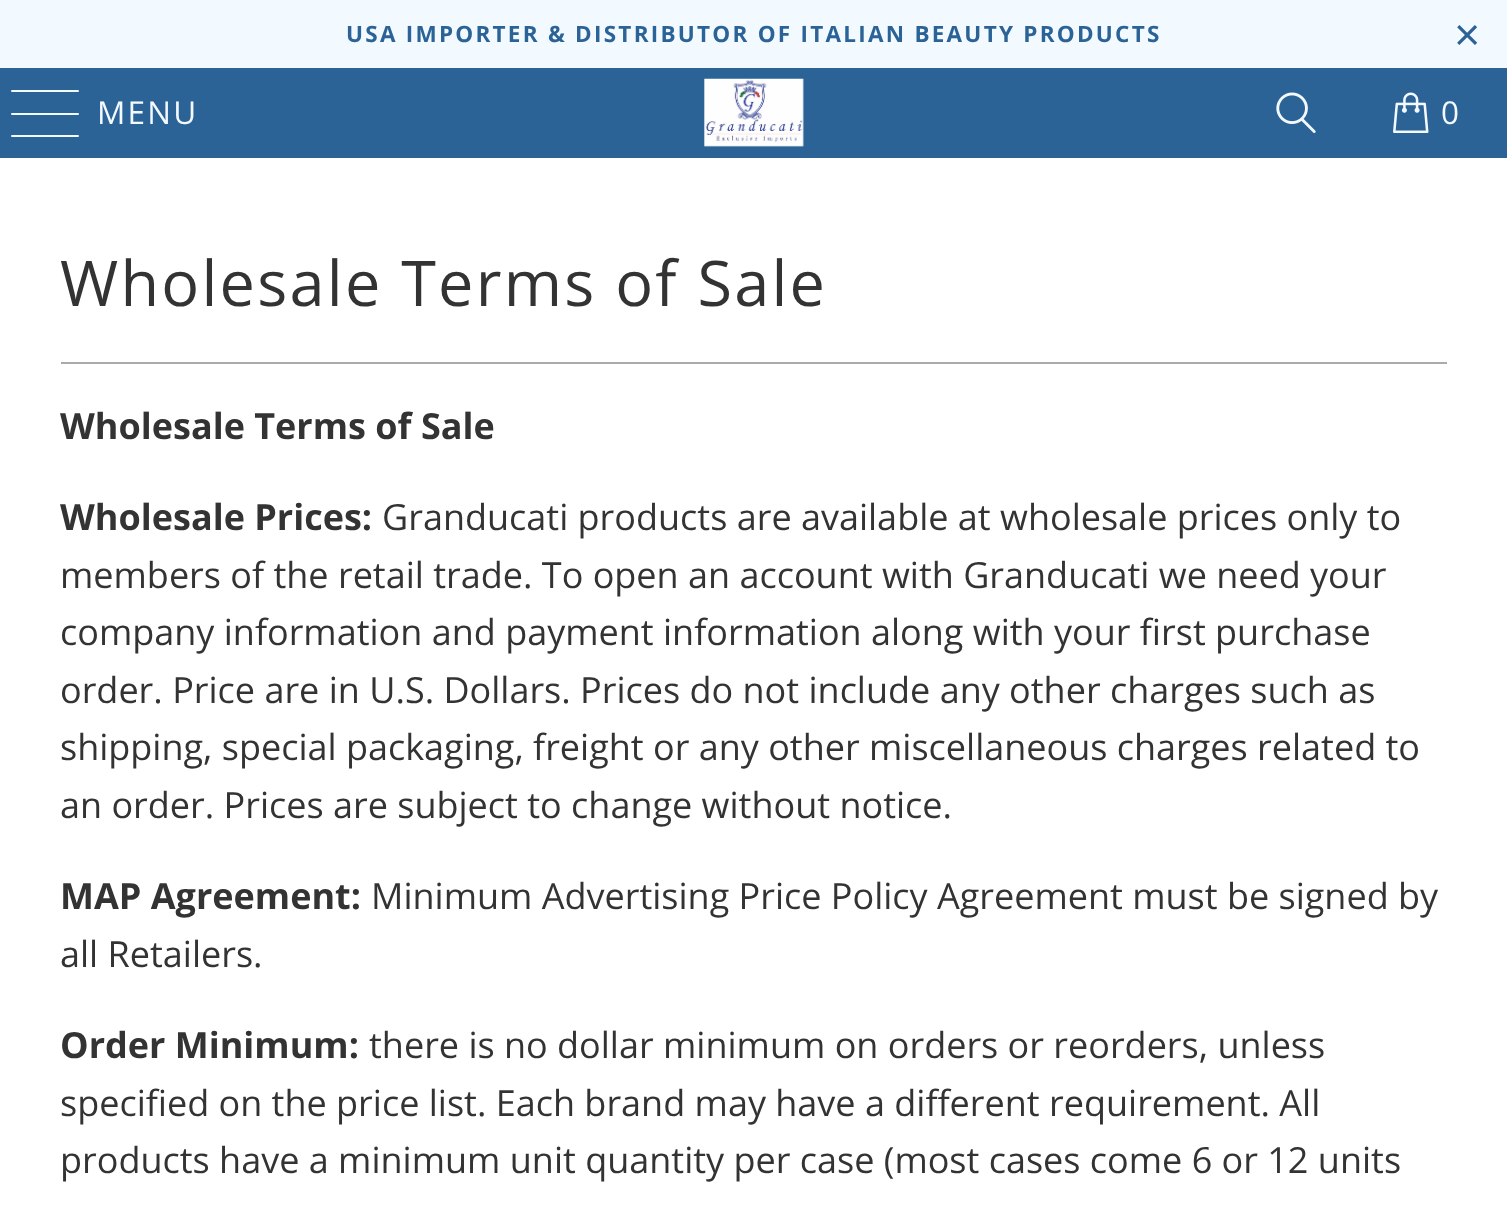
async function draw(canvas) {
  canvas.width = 1507;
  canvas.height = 1220;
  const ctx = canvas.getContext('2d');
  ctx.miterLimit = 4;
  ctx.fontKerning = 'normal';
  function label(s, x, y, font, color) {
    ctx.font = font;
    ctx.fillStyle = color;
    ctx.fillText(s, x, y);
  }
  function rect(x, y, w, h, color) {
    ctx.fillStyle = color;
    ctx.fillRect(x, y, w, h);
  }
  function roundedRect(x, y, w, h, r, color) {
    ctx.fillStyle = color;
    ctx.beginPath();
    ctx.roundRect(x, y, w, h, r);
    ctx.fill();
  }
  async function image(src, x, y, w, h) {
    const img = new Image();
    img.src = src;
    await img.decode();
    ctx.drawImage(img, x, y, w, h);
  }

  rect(0, 0, 1507, 1220, '#fff');
  rect(0, 0, 1507, 68, '#f2f9ff');
  ctx.letterSpacing = '2.25px';
  label('USA IMPORTER & DISTRIBUTOR OF ITALIAN BEAUTY PRODUCTS', 346, 42, 'bold 22.5px Open Sans', '#2c6396');
  label('×', 1454, 50, '45px Liberation Sans', '#2c6396');
  rect(0, 68, 1507, 90, '#2c6396');
  roundedRect(11, 90, 68, 2, 1, '#f2f9ff');
  roundedRect(11, 113, 68, 2, 1, '#f2f9ff');
  roundedRect(11, 135, 68, 2, 1, '#f2f9ff');
  label('MENU', 97, 124, '31.5px Open Sans', '#f2f9ff');
  await image('assets/img1.png', 704, 78, 100, 69);
  await image('assets/img2.png', 1276, 92, 40, 41);
  await image('assets/img3.png', 1393, 92, 36, 41);
  label('0', 1441, 124, '31.5px Open Sans', '#f2f9ff');
  label('Wholesale Terms of Sale', 60, 306, '63px Open Sans', '#333');
  rect(61, 362, 1386, 2, '#aaa');
  ctx.letterSpacing = '0px';
  label('Wholesale Terms of Sale', 60, 439, 'bold 36px Open Sans', '#333');
  label('Wholesale Prices:', 60, 530, 'bold 36px Open Sans', '#333');
  label('Granducati products are available at wholesale prices only to', 382, 530, '36px Open Sans', '#333');
  label('members of the retail trade. To open an account with Granducati we need your', 60, 588, '36px Open Sans', '#333');
  label('company information and payment information along with your first purchase', 60, 645, '36px Open Sans', '#333');
  label('order. Price are in U.S. Dollars. Prices do not include any other charges such as', 60, 703, '36px Open Sans', '#333');
  label('shipping, special packaging, freight or any other miscellaneous charges related to', 60, 760, '36px Open Sans', '#333');
  label('an order. Prices are subject to change without notice.', 60, 818, '36px Open Sans', '#333');
  label('MAP Agreement:', 60, 909, 'bold 36px Open Sans', '#333');
  label('Minimum Advertising Price Policy Agreement must be signed by', 371, 909, '36px Open Sans', '#333');
  label('all Retailers.', 60, 967, '36px Open Sans', '#333');
  label('Order Minimum:', 60, 1058, 'bold 36px Open Sans', '#333');
  label('there is no dollar minimum on orders or reorders, unless', 369, 1058, '36px Open Sans', '#333');
  label('specified on the price list. Each brand may have a different requirement. All', 60, 1116, '36px Open Sans', '#333');
  label('products have a minimum unit quantity per case (most cases come 6 or 12 units', 60, 1173, '36px Open Sans', '#333');
}

draw(document.querySelector('canvas'));
